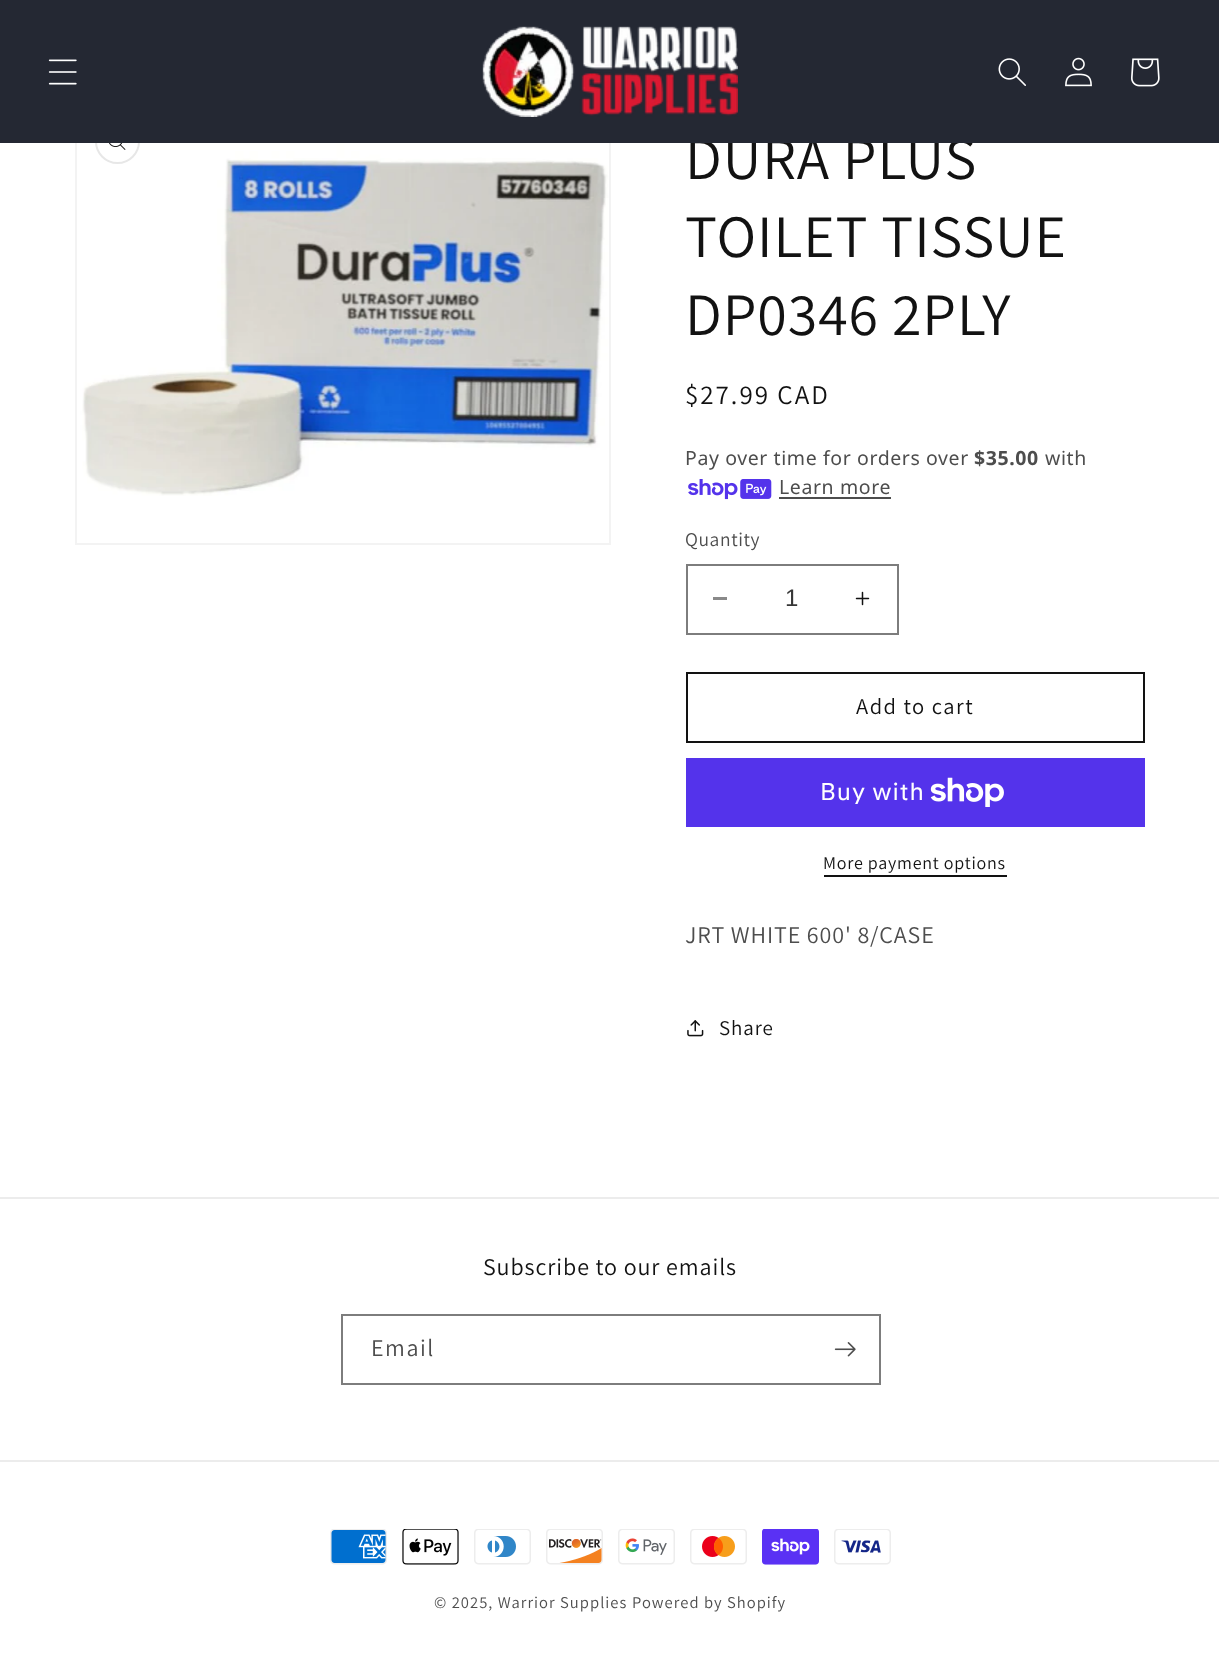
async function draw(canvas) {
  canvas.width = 1219;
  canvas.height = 1670;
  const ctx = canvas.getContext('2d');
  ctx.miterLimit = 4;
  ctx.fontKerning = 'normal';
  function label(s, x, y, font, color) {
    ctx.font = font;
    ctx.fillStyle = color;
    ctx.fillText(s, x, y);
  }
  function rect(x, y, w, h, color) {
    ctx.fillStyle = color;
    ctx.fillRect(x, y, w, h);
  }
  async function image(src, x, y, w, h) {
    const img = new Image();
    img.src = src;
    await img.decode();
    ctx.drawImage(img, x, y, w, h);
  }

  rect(0, 0, 1219, 1670, '#fff');
  ctx.strokeStyle = '#f3f3f3';
  ctx.lineWidth = 2;
  ctx.strokeRect(76, 100, 534, 444);
  await image('assets/img7.png', 77, 143, 532, 353);
  ctx.beginPath();
  ctx.arc(117.5, 141.5, 21.5, 0, 2 * Math.PI);
  ctx.strokeStyle = '#e7e7e7';
  ctx.stroke();
  ctx.letterSpacing = '0.9px';
  label('DURA PLUS', 685, 179, '60px Assistant', '#121212');
  rect(0, 0, 1219, 143, '#242833');
  await image('assets/img1.png', 48, 59, 29, 26);
  await image('assets/img2.png', 482, 26, 256, 91);
  await image('assets/img3.png', 998, 58, 28, 28);
  await image('assets/img4.png', 1065, 57, 27, 30);
  await image('assets/img5.png', 1131, 58, 29, 29);
  await image('assets/img6.png', 109, 143, 17, 7);
  label('TOILET TISSUE', 685, 257, '60px Assistant', '#121212');
  label('DP0346 2PLY', 685, 335, '60px Assistant', '#121212');
  ctx.letterSpacing = '2px';
  label('$27.99 CAD', 685, 404, '27px Assistant', '#121212');
  ctx.letterSpacing = '0.6px';
  label('Pay over time for orders over', 685, 465, '19.5px Noto Sans', '#4d4d4d');
  label('$35.00', 974, 465, 'bold 19.5px Noto Sans', '#4d4d4d');
  label('with', 1045, 465, '19.5px Noto Sans', '#4d4d4d');
  await image('assets/img8.png', 688, 479, 84, 21);
  label('Learn more', 779, 494, '19.5px Noto Sans', '#4d4d4d');
  rect(779, 497, 112, 2, '#4d4d4d');
  label('Quantity', 685, 546, '19.5px Assistant', '#4d4d4d');
  rect(713, 597, 14, 3, '#898989');
  await image('assets/img9.png', 855, 591, 15, 15);
  ctx.strokeStyle = '#7d7d7d';
  ctx.strokeRect(687, 565, 211, 69);
  ctx.letterSpacing = '0px';
  label('1', 785, 606, '24px Liberation Sans', '#363636');
  ctx.strokeStyle = '#121212';
  ctx.strokeRect(687, 673, 457, 69);
  ctx.letterSpacing = '1.5px';
  label('Add to cart', 856, 714, '22.5px Assistant', '#121212');
  rect(686, 758, 459, 69, '#5433eb');
  ctx.letterSpacing = '0.9px';
  label('Buy with', 820, 800, '24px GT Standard', '#fff');
  await image('assets/img10.png', 930, 777, 74, 30);
  ctx.letterSpacing = '0.75px';
  label('More payment options', 823, 869, '18px Assistant', '#121212');
  rect(824, 875, 183, 2, '#121212');
  ctx.letterSpacing = '0.9px';
  label('JRT WHITE 600\' 8/CASE', 685, 943, '24px Assistant', '#4d4d4d');
  await image('assets/img11.png', 687, 1020, 17, 17);
  label('Share', 719, 1035, '21px Assistant', '#121212');
  rect(0, 1197, 1219, 2, '#ececec');
  label('Subscribe to our emails', 483, 1275, '24px Assistant', '#121212');
  ctx.strokeStyle = '#7d7d7d';
  ctx.strokeRect(342, 1315, 538, 69);
  ctx.letterSpacing = '1.5px';
  label('Email', 371, 1356, '24px Assistant', '#4d4d4d');
  await image('assets/img12.png', 834, 1342, 22, 15);
  rect(0, 1460, 1219, 2, '#ececec');
  await image('assets/img13.png', 330, 1529, 57, 36);
  await image('assets/img14.png', 402, 1529, 57, 36);
  await image('assets/img15.png', 474, 1529, 57, 36);
  await image('assets/img16.png', 546, 1529, 57, 36);
  await image('assets/img17.png', 618, 1529, 57, 36);
  await image('assets/img18.png', 690, 1529, 57, 36);
  await image('assets/img19.png', 762, 1529, 57, 36);
  await image('assets/img20.png', 834, 1529, 57, 36);
  ctx.letterSpacing = '1.05px';
  label('© 2025, Warrior Supplies', 434, 1608, '16.5px Assistant', '#4d4d4d');
  label('Powered by Shopify', 632, 1608, '16.5px Assistant', '#4d4d4d');
}

draw(document.querySelector('canvas'));
